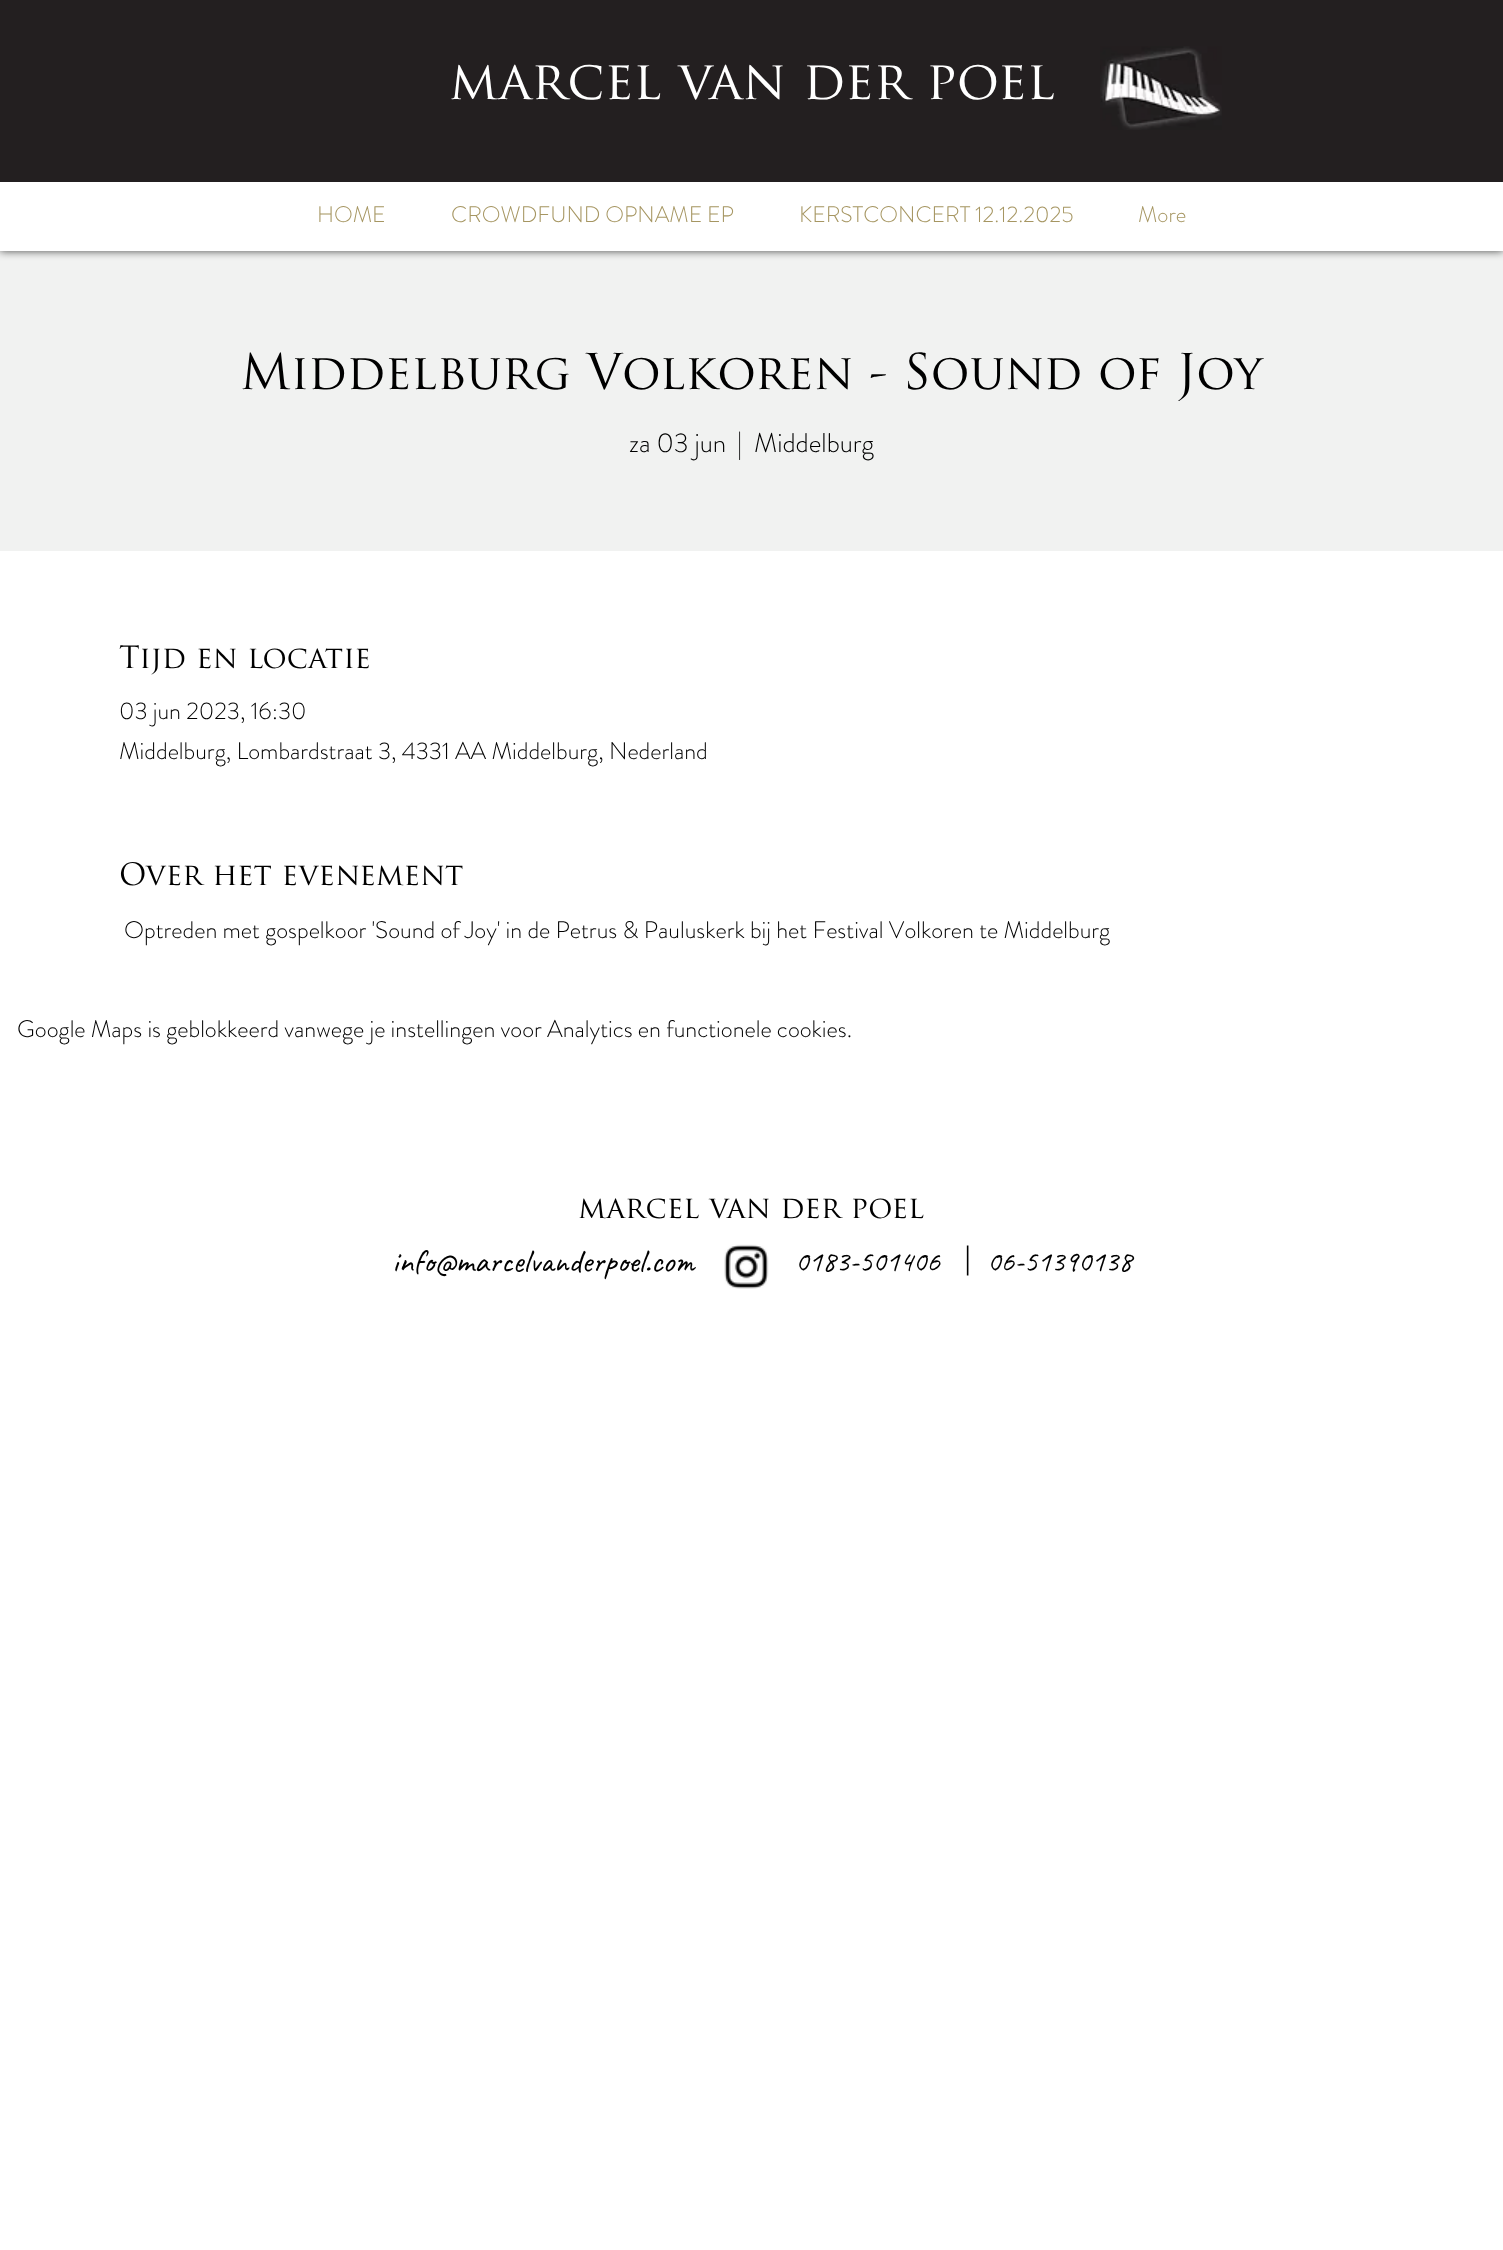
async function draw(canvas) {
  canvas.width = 1503;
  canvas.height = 2250;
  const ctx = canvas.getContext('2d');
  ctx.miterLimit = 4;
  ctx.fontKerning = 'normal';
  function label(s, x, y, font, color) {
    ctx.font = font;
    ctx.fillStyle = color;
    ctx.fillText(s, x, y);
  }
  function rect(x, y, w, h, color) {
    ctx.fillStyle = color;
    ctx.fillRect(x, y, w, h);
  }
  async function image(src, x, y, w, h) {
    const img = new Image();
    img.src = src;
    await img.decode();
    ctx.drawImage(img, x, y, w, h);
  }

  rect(0, 0, 1503, 2250, '#fff');
  rect(0, 251, 1503, 300, '#f1f2f1');
  ctx.fillStyle = '#000000b3';
  ctx.filter = 'blur(4px)';
  ctx.beginPath();
  ctx.rect(0, 0, 1503, 251);
  ctx.fill();
  ctx.filter = 'none';
  rect(0, 0, 1503, 182, '#231f20');
  label('marcel van der poel', 449, 99, '52.5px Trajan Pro', '#fff');
  await image('assets/img1.png', 1100, 46, 122, 84);
  rect(0, 182, 1503, 69, '#fff');
  label('HOME', 317, 222, '300 22.5px "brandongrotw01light"', '#a69662');
  label('CROWDFUND OPNAME EP', 451, 222, '300 22.5px "brandongrotw01light"', '#a69662');
  label('KERSTCONCERT 12.12.2025', 799, 222, '300 22.5px "brandongrotw01light"', '#a69662');
  label('More', 1138, 222, '300 22.5px "brandongrotw01light"', '#a69662');
  label('Middelburg Volkoren - Sound of Joy', 240, 389, '48px Trajan Pro', '#000');
  label('za 03 jun', 629, 452, '300 27px "brandongrotw01light"', '#000');
  label('|', 737, 452, '300 27px "brandongrotw01light"', '#000');
  label('Middelburg', 754, 452, '300 27px "brandongrotw01light"', '#000');
  label('Tijd en locatie', 119, 668, '30px Trajan Pro', '#000');
  label('03 jun 2023, 16:30', 119, 719, '300 24px "brandongrotw01light"', '#000');
  label('Middelburg, Lombardstraat 3, 4331 AA Middelburg, Nederland', 119, 759, '300 24px "brandongrotw01light"', '#000');
  label('Over het evenement', 119, 885, '30px Trajan Pro', '#000');
  label('Optreden met gospelkoor \'Sound of Joy\' in de Petrus & Pauluskerk bij het Festival Volkoren te Middelburg', 124, 938, '300 24px "brandongrotw01light"', '#000');
  label('Google Maps is geblokkeerd vanwege je instellingen voor Analytics en functionele cookies.', 17, 1037, '300 24px "brandongrotw01light"', '#000');
  label('marcel van der poel', 578, 1218, '30px Trajan Pro', '#000');
  label('info@marcelvanderpoel.com', 392, 1272, '33px Caveat', '#000');
  await image('assets/img2.png', 724, 1244, 45, 45);
  label('0183-501406', 795, 1271, '30px Caveat', '#000');
  label('|', 960, 1268, '30px Trajan Pro', '#000');
  label('06-51390138', 987, 1271, '30px Caveat', '#000');
}

draw(document.querySelector('canvas'));
